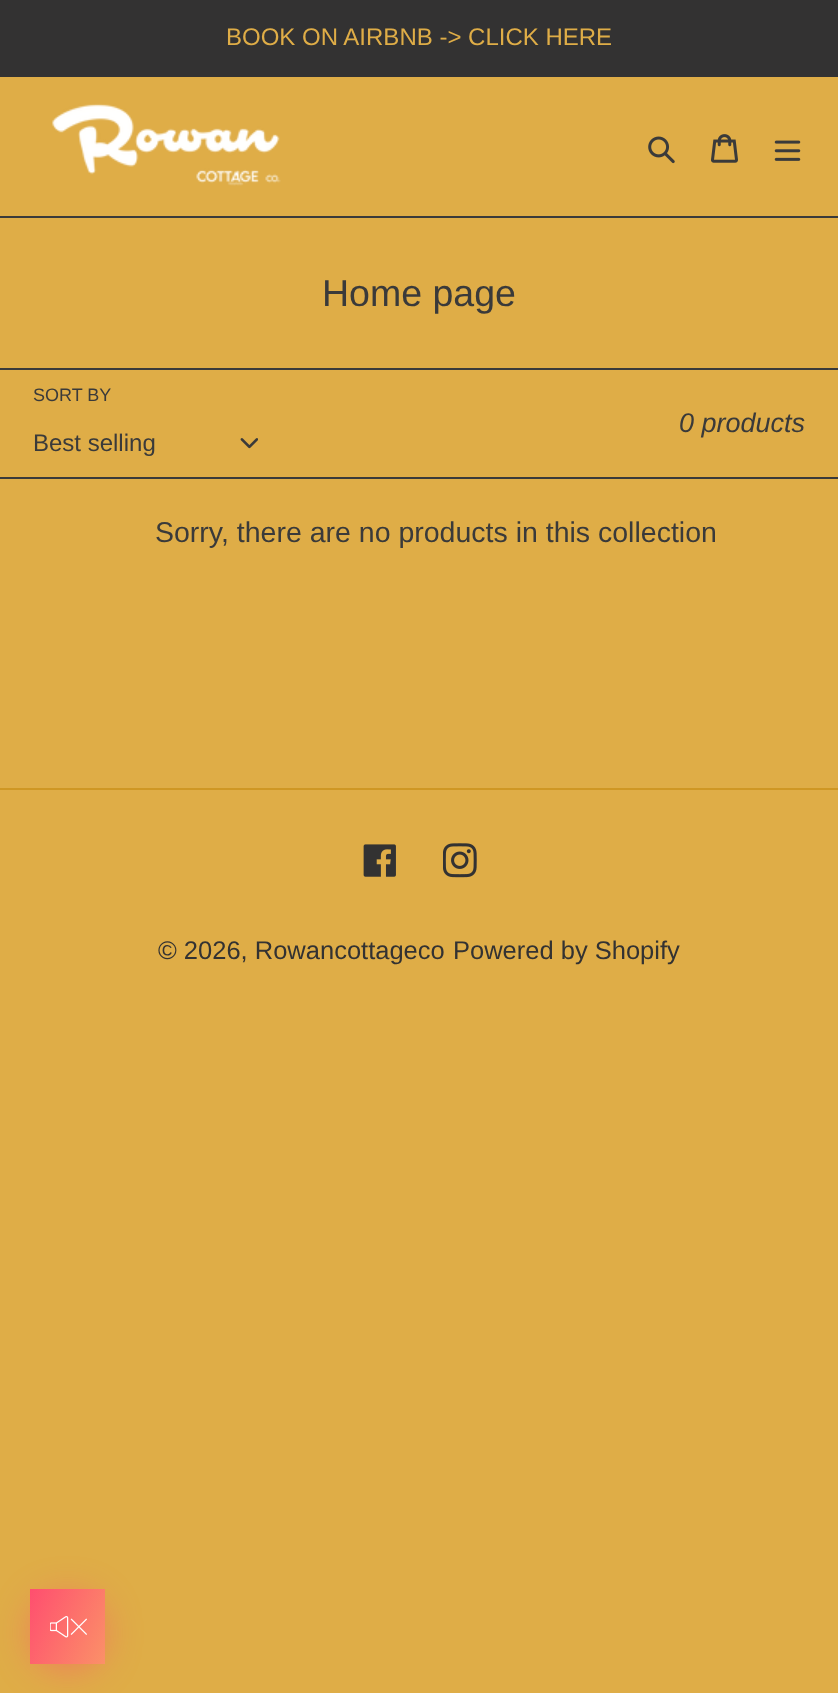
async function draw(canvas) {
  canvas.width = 838;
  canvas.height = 1693;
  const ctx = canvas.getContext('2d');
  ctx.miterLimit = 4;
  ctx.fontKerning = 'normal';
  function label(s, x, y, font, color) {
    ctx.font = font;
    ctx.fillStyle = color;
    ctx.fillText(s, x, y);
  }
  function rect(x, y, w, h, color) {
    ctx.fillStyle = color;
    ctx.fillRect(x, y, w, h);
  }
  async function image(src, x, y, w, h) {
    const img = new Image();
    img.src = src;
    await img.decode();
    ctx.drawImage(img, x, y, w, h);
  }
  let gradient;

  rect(0, 0, 838, 1693, '#dfad47');
  rect(0, 0, 838, 77, '#333232');
  label('BOOK ON AIRBNB -> CLICK HERE', 226, 45, '24px Liberation Sans', '#dfad47');
  rect(0, 216, 838, 2, '#3a3a3a');
  await image('assets/img1.png', 52, 103, 229, 83);
  await image('assets/img2.png', 648, 136, 27, 28);
  await image('assets/img3.png', 711, 134, 27, 29);
  await image('assets/img4.png', 774, 140, 27, 21);
  label('Home page', 322, 306, '37.5px Liberation Sans', '#3a3a3a');
  rect(0, 368, 838, 2, '#3a3a3a');
  rect(0, 477, 838, 2, '#3a3a3a');
  label('SORT BY', 33, 401, '18px Liberation Sans', '#3a3a3a');
  label('Best selling', 33, 451, '24px Liberation Sans', '#3a3a3a');
  await image('assets/img5.png', 240, 438, 18, 11);
  label('0 products', 679, 432, 'italic 27px Liberation Sans', '#3a3a3a');
  label('Sorry, there are no products in this collection', 155, 542, '28.5px Liberation Sans', '#3a3a3a');
  rect(0, 788, 838, 2, '#cf9724');
  await image('assets/img6.png', 363, 844, 33, 33);
  await image('assets/img7.png', 443, 843, 34, 35);
  label('© 2026, Rowancottageco', 158, 959, '25.5px Liberation Sans', '#333232');
  label('Powered by Shopify', 453, 959, '25.5px Liberation Sans', '#333232');
  ctx.fillStyle = '#ff4e6f80';
  ctx.filter = 'blur(18px)';
  ctx.beginPath();
  ctx.roundRect(30, 1595, 75, 75, 37.5);
  ctx.fill();
  ctx.filter = 'none';
  gradient = ctx.createLinearGradient(22, 1605, 113, 1647);
  gradient.addColorStop(0, '#ff4e6f');
  gradient.addColorStop(1, '#fb9168');
  ctx.fillStyle = gradient;
  ctx.fillRect(30, 1589, 75, 75);
  await image('assets/img8.png', 50, 1616, 37, 22);
}

draw(document.querySelector('canvas'));
